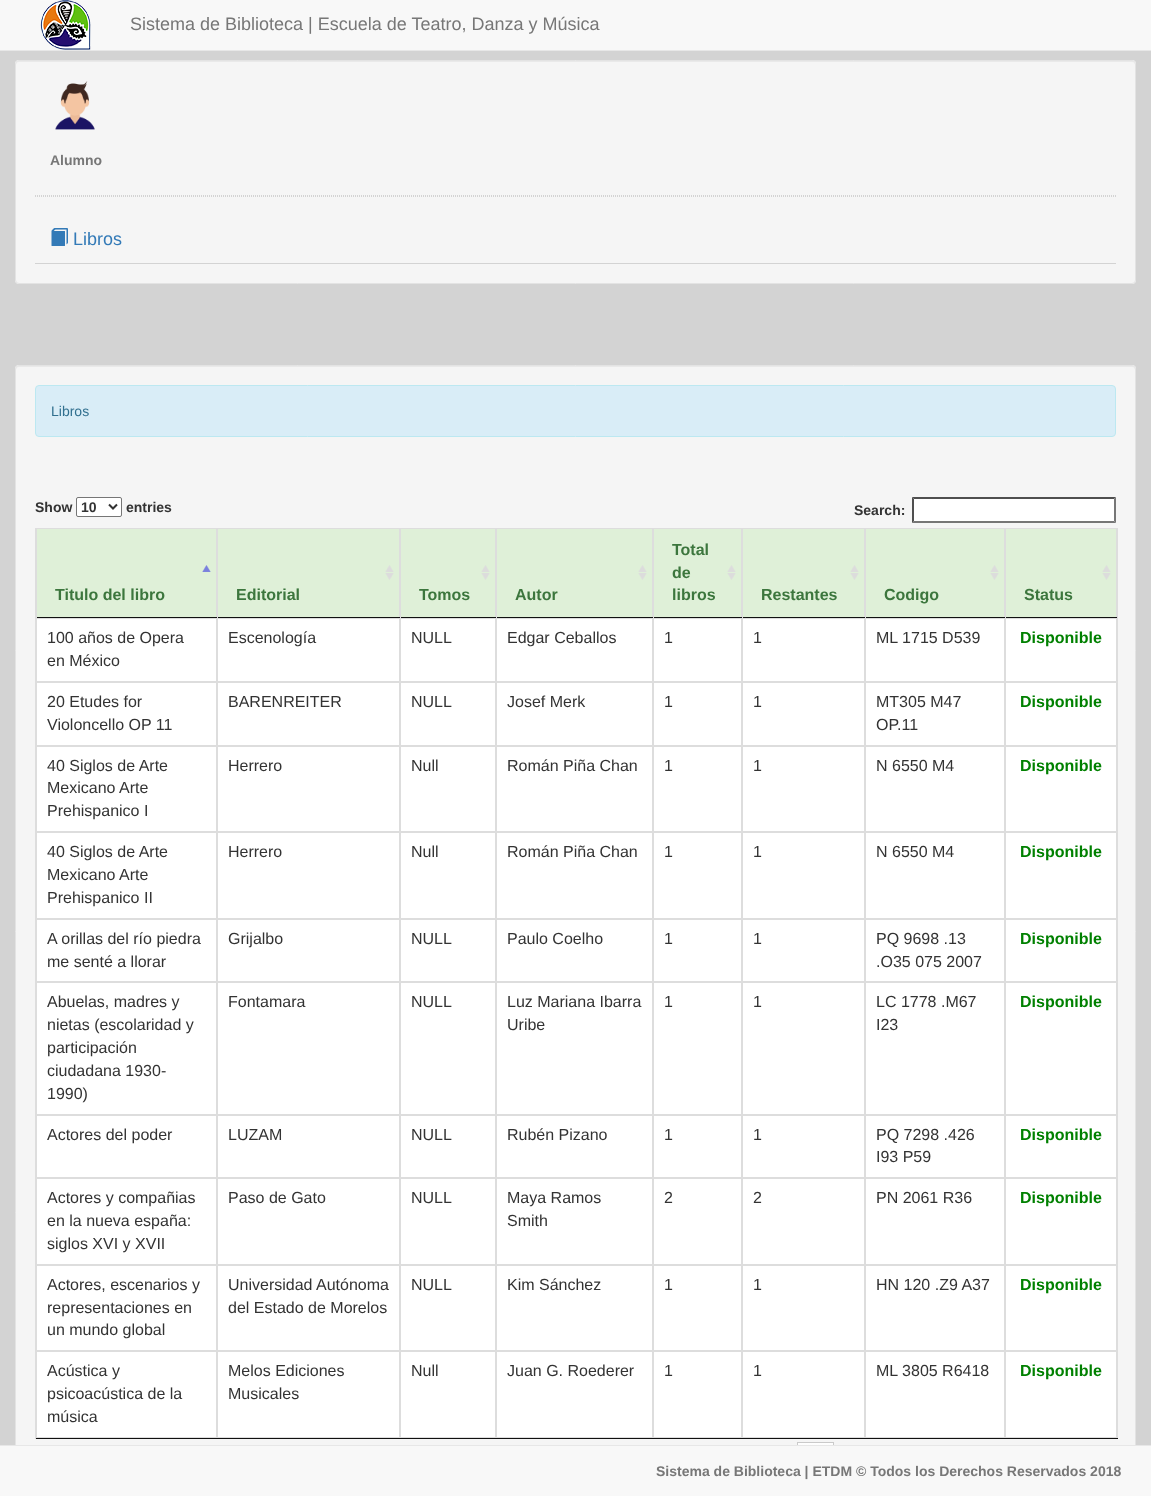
async function draw(canvas) {
  canvas.width = 1151;
  canvas.height = 1496;
  const ctx = canvas.getContext('2d');
  ctx.miterLimit = 4;
  ctx.fontKerning = 'normal';
  function label(s, x, y, font, color) {
    ctx.font = font;
    ctx.fillStyle = color;
    ctx.fillText(s, x, y);
  }
  function rect(x, y, w, h, color) {
    ctx.fillStyle = color;
    ctx.fillRect(x, y, w, h);
  }
  function roundedRect(x, y, w, h, r, color) {
    ctx.fillStyle = color;
    ctx.beginPath();
    ctx.roundRect(x, y, w, h, r);
    ctx.fill();
  }
  async function image(src, x, y, w, h) {
    const img = new Image();
    img.src = src;
    await img.decode();
    ctx.drawImage(img, x, y, w, h);
  }
  let gradient, path;

  rect(0, 0, 1151, 1496, '#d3d3d3');
  rect(0, 0, 1151, 50, '#f8f8f8');
  rect(0, 50, 1151, 1, '#e7e7e7');
  await image('assets/img1.png', 40, 0, 51, 50);
  label('Sistema de Biblioteca | Escuela de Teatro, Danza y Música', 130, 30, '18px Liberation Sans', '#777');
  roundedRect(15, 60, 1121, 224, 4, '#f5f5f5');
  ctx.fillStyle = '#e9e9e9';
  path = new Path2D('M19 62H1132C1134 62 1135 63 1135 65V64C1135 62 1134 61 1132 61H19C17 61 16 62 16 64V65C16 63 17 62 19 62Z');
  ctx.fill(path);
  ctx.beginPath();
  ctx.roundRect(15.5, 60.5, 1120, 223, 3.5);
  ctx.strokeStyle = '#e3e3e3';
  ctx.stroke();
  await image('assets/img2.png', 55, 81, 40, 49);
  label('Alumno', 50, 165, 'bold 14px Liberation Sans', '#777');
  path = new Path2D('M35 195.5H1116');
  ctx.strokeStyle = '#d3d3d3';
  ctx.setLineDash([1, 1]);
  ctx.stroke(path);
  rect(1115, 195, 1, 2, '#d3d3d3');
  path = new Path2D('M35 196.5H1116');
  ctx.stroke(path);
  rect(35, 263, 1081, 1, '#d3d3d3');
  await image('assets/img3.png', 51, 228, 17, 18);
  label('Libros', 73, 245, '18px Liberation Sans', '#337ab7');
  roundedRect(15, 365, 1121, 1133, 4, '#f5f5f5');
  ctx.fillStyle = '#e9e9e9';
  path = new Path2D('M19 367H1132C1134 367 1135 368 1135 370V369C1135 367 1134 366 1132 366H19C17 366 16 367 16 369V370C16 368 17 367 19 367Z');
  ctx.fill(path);
  ctx.beginPath();
  ctx.roundRect(15.5, 365.5, 1120, 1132, 3.5);
  ctx.strokeStyle = '#e3e3e3';
  ctx.setLineDash([]);
  ctx.stroke();
  ctx.fillStyle = '#d9edf7';
  ctx.beginPath();
  ctx.roundRect(35.5, 385.5, 1080, 51, 3.5);
  ctx.fill();
  ctx.strokeStyle = '#bce8f1';
  ctx.stroke();
  label('Libros', 51, 416, '14px Liberation Sans', '#31708f');
  label('Show', 35, 512, 'bold 14px Liberation Sans', '#333');
  ctx.fillStyle = '#fff';
  ctx.beginPath();
  ctx.roundRect(76.5, 497.5, 45, 19, 1.5);
  ctx.fill();
  ctx.strokeStyle = '#767676';
  ctx.stroke();
  path = new Path2D('M109 504.5L113 508.5L117 504.5');
  ctx.strokeStyle = '#333';
  ctx.lineWidth = 2;
  ctx.stroke(path);
  label('10', 81, 512, 'bold 14px Liberation Sans', '#333');
  label('entries', 126, 512, 'bold 14px Liberation Sans', '#333');
  label('Search:', 854, 515, 'bold 14px Liberation Sans', '#333');
  rect(912, 497, 204, 26, '#fff');
  ctx.fillStyle = '#4f4f4f';
  path = new Path2D('M912 497H1116L1114 499H914Z');
  ctx.fill(path);
  ctx.fillStyle = '#767676';
  path = new Path2D('M1116 497V523L1114 521V499Z');
  ctx.fill(path);
  path = new Path2D('M1116 523H912L914 521H1114Z');
  ctx.fill(path);
  ctx.fillStyle = '#4f4f4f';
  path = new Path2D('M912 523V497L914 499V521Z');
  ctx.fill(path);
  rect(35, 528, 1083, 1, '#ddd');
  rect(1117, 528, 1, 911, '#ddd');
  rect(35, 1438, 1083, 1, '#111');
  rect(35, 528, 1, 911, '#ddd');
  rect(37, 529, 1079, 88, '#dff0d8');
  await image('assets/img4.png', 202, 565, 9, 7);
  rect(216, 529, 1, 89, '#ddd');
  rect(36, 617, 181, 1, '#111');
  rect(36, 529, 1, 89, '#ddd');
  label('Titulo del libro', 55, 600, 'bold 16px Liberation Sans', '#3c763d');
  await image('assets/img5.png', 385, 565, 9, 15);
  rect(399, 529, 1, 89, '#ddd');
  rect(217, 617, 183, 1, '#111');
  rect(217, 529, 1, 89, '#ddd');
  label('Editorial', 236, 600, 'bold 16px Liberation Sans', '#3c763d');
  await image('assets/img5.png', 481, 565, 9, 15);
  rect(495, 529, 1, 89, '#ddd');
  rect(400, 617, 96, 1, '#111');
  rect(400, 529, 1, 89, '#ddd');
  label('Tomos', 419, 600, 'bold 16px Liberation Sans', '#3c763d');
  await image('assets/img5.png', 638, 565, 9, 15);
  rect(652, 529, 1, 89, '#ddd');
  rect(496, 617, 157, 1, '#111');
  rect(496, 529, 1, 89, '#ddd');
  label('Autor', 515, 600, 'bold 16px Liberation Sans', '#3c763d');
  await image('assets/img5.png', 727, 565, 9, 15);
  rect(741, 529, 1, 89, '#ddd');
  rect(653, 617, 89, 1, '#111');
  rect(653, 529, 1, 89, '#ddd');
  label('Total', 672, 555, 'bold 16px Liberation Sans', '#3c763d');
  label('de', 672, 578, 'bold 16px Liberation Sans', '#3c763d');
  label('libros', 672, 600, 'bold 16px Liberation Sans', '#3c763d');
  await image('assets/img5.png', 850, 565, 9, 15);
  rect(864, 529, 1, 89, '#ddd');
  rect(742, 617, 123, 1, '#111');
  rect(742, 529, 1, 89, '#ddd');
  label('Restantes', 761, 600, 'bold 16px Liberation Sans', '#3c763d');
  await image('assets/img5.png', 990, 565, 9, 15);
  rect(1004, 529, 1, 89, '#ddd');
  rect(865, 617, 140, 1, '#111');
  rect(865, 529, 1, 89, '#ddd');
  label('Codigo', 884, 600, 'bold 16px Liberation Sans', '#3c763d');
  await image('assets/img5.png', 1102, 565, 9, 15);
  rect(1116, 529, 1, 89, '#ddd');
  rect(1005, 617, 112, 1, '#111');
  rect(1005, 529, 1, 89, '#ddd');
  label('Status', 1024, 600, 'bold 16px Liberation Sans', '#3c763d');
  rect(37, 619, 1079, 62, '#fff');
  ctx.strokeStyle = '#ddd';
  ctx.lineWidth = 1;
  ctx.strokeRect(36.5, 618.5, 180, 63);
  label('100 años de Opera', 47, 643, '16px Liberation Sans', '#333');
  label('en México', 47, 666, '16px Liberation Sans', '#333');
  ctx.strokeRect(217.5, 618.5, 182, 63);
  label('Escenología', 228, 643, '16px Liberation Sans', '#333');
  ctx.strokeRect(400.5, 618.5, 95, 63);
  label('NULL', 411, 643, '16px Liberation Sans', '#333');
  ctx.strokeRect(496.5, 618.5, 156, 63);
  label('Edgar Ceballos', 507, 643, '16px Liberation Sans', '#333');
  ctx.strokeRect(653.5, 618.5, 88, 63);
  label('1', 664, 643, '16px Liberation Sans', '#333');
  ctx.strokeRect(742.5, 618.5, 122, 63);
  label('1', 753, 643, '16px Liberation Sans', '#333');
  ctx.strokeRect(865.5, 618.5, 139, 63);
  label('ML 1715 D539', 876, 643, '16px Liberation Sans', '#333');
  ctx.strokeRect(1005.5, 618.5, 111, 63);
  label('Disponible', 1020, 643, 'bold 16px Liberation Sans', '#008000');
  rect(37, 683, 1079, 62, '#fff');
  ctx.strokeRect(36.5, 682.5, 180, 63);
  label('20 Etudes for', 47, 707, '16px Liberation Sans', '#333');
  label('Violoncello OP 11', 47, 730, '16px Liberation Sans', '#333');
  ctx.strokeRect(217.5, 682.5, 182, 63);
  label('BARENREITER', 228, 707, '16px Liberation Sans', '#333');
  ctx.strokeRect(400.5, 682.5, 95, 63);
  label('NULL', 411, 707, '16px Liberation Sans', '#333');
  ctx.strokeRect(496.5, 682.5, 156, 63);
  label('Josef Merk', 507, 707, '16px Liberation Sans', '#333');
  ctx.strokeRect(653.5, 682.5, 88, 63);
  label('1', 664, 707, '16px Liberation Sans', '#333');
  ctx.strokeRect(742.5, 682.5, 122, 63);
  label('1', 753, 707, '16px Liberation Sans', '#333');
  ctx.strokeRect(865.5, 682.5, 139, 63);
  label('MT305 M47', 876, 707, '16px Liberation Sans', '#333');
  label('OP.11', 876, 730, '16px Liberation Sans', '#333');
  ctx.strokeRect(1005.5, 682.5, 111, 63);
  label('Disponible', 1020, 707, 'bold 16px Liberation Sans', '#008000');
  rect(37, 747, 1079, 84, '#fff');
  ctx.strokeRect(36.5, 746.5, 180, 85);
  label('40 Siglos de Arte', 47, 771, '16px Liberation Sans', '#333');
  label('Mexicano Arte', 47, 793, '16px Liberation Sans', '#333');
  label('Prehispanico I', 47, 816, '16px Liberation Sans', '#333');
  ctx.strokeRect(217.5, 746.5, 182, 85);
  label('Herrero', 228, 771, '16px Liberation Sans', '#333');
  ctx.strokeRect(400.5, 746.5, 95, 85);
  label('Null', 411, 771, '16px Liberation Sans', '#333');
  ctx.strokeRect(496.5, 746.5, 156, 85);
  label('Román Piña Chan', 507, 771, '16px Liberation Sans', '#333');
  ctx.strokeRect(653.5, 746.5, 88, 85);
  label('1', 664, 771, '16px Liberation Sans', '#333');
  ctx.strokeRect(742.5, 746.5, 122, 85);
  label('1', 753, 771, '16px Liberation Sans', '#333');
  ctx.strokeRect(865.5, 746.5, 139, 85);
  label('N 6550 M4', 876, 771, '16px Liberation Sans', '#333');
  ctx.strokeRect(1005.5, 746.5, 111, 85);
  label('Disponible', 1020, 771, 'bold 16px Liberation Sans', '#008000');
  rect(37, 833, 1079, 85, '#fff');
  ctx.strokeRect(36.5, 832.5, 180, 86);
  label('40 Siglos de Arte', 47, 857, '16px Liberation Sans', '#333');
  label('Mexicano Arte', 47, 880, '16px Liberation Sans', '#333');
  label('Prehispanico II', 47, 903, '16px Liberation Sans', '#333');
  ctx.strokeRect(217.5, 832.5, 182, 86);
  label('Herrero', 228, 857, '16px Liberation Sans', '#333');
  ctx.strokeRect(400.5, 832.5, 95, 86);
  label('Null', 411, 857, '16px Liberation Sans', '#333');
  ctx.strokeRect(496.5, 832.5, 156, 86);
  label('Román Piña Chan', 507, 857, '16px Liberation Sans', '#333');
  ctx.strokeRect(653.5, 832.5, 88, 86);
  label('1', 664, 857, '16px Liberation Sans', '#333');
  ctx.strokeRect(742.5, 832.5, 122, 86);
  label('1', 753, 857, '16px Liberation Sans', '#333');
  ctx.strokeRect(865.5, 832.5, 139, 86);
  label('N 6550 M4', 876, 857, '16px Liberation Sans', '#333');
  ctx.strokeRect(1005.5, 832.5, 111, 86);
  label('Disponible', 1020, 857, 'bold 16px Liberation Sans', '#008000');
  rect(37, 920, 1079, 61, '#fff');
  ctx.strokeRect(36.5, 919.5, 180, 62);
  label('A orillas del río piedra', 47, 944, '16px Liberation Sans', '#333');
  label('me senté a llorar', 47, 967, '16px Liberation Sans', '#333');
  ctx.strokeRect(217.5, 919.5, 182, 62);
  label('Grijalbo', 228, 944, '16px Liberation Sans', '#333');
  ctx.strokeRect(400.5, 919.5, 95, 62);
  label('NULL', 411, 944, '16px Liberation Sans', '#333');
  ctx.strokeRect(496.5, 919.5, 156, 62);
  label('Paulo Coelho', 507, 944, '16px Liberation Sans', '#333');
  ctx.strokeRect(653.5, 919.5, 88, 62);
  label('1', 664, 944, '16px Liberation Sans', '#333');
  ctx.strokeRect(742.5, 919.5, 122, 62);
  label('1', 753, 944, '16px Liberation Sans', '#333');
  ctx.strokeRect(865.5, 919.5, 139, 62);
  label('PQ 9698 .13', 876, 944, '16px Liberation Sans', '#333');
  label('.O35 075 2007', 876, 967, '16px Liberation Sans', '#333');
  ctx.strokeRect(1005.5, 919.5, 111, 62);
  label('Disponible', 1020, 944, 'bold 16px Liberation Sans', '#008000');
  rect(37, 983, 1079, 131, '#fff');
  ctx.strokeRect(36.5, 982.5, 180, 132);
  label('Abuelas, madres y', 47, 1007, '16px Liberation Sans', '#333');
  label('nietas (escolaridad y', 47, 1030, '16px Liberation Sans', '#333');
  label('participación', 47, 1053, '16px Liberation Sans', '#333');
  label('ciudadana 1930-', 47, 1076, '16px Liberation Sans', '#333');
  label('1990)', 47, 1099, '16px Liberation Sans', '#333');
  ctx.strokeRect(217.5, 982.5, 182, 132);
  label('Fontamara', 228, 1007, '16px Liberation Sans', '#333');
  ctx.strokeRect(400.5, 982.5, 95, 132);
  label('NULL', 411, 1007, '16px Liberation Sans', '#333');
  ctx.strokeRect(496.5, 982.5, 156, 132);
  label('Luz Mariana Ibarra', 507, 1007, '16px Liberation Sans', '#333');
  label('Uribe', 507, 1030, '16px Liberation Sans', '#333');
  ctx.strokeRect(653.5, 982.5, 88, 132);
  label('1', 664, 1007, '16px Liberation Sans', '#333');
  ctx.strokeRect(742.5, 982.5, 122, 132);
  label('1', 753, 1007, '16px Liberation Sans', '#333');
  ctx.strokeRect(865.5, 982.5, 139, 132);
  label('LC 1778 .M67', 876, 1007, '16px Liberation Sans', '#333');
  label('I23', 876, 1030, '16px Liberation Sans', '#333');
  ctx.strokeRect(1005.5, 982.5, 111, 132);
  label('Disponible', 1020, 1007, 'bold 16px Liberation Sans', '#008000');
  rect(37, 1116, 1079, 61, '#fff');
  ctx.strokeRect(36.5, 1115.5, 180, 62);
  label('Actores del poder', 47, 1140, '16px Liberation Sans', '#333');
  ctx.strokeRect(217.5, 1115.5, 182, 62);
  label('LUZAM', 228, 1140, '16px Liberation Sans', '#333');
  ctx.strokeRect(400.5, 1115.5, 95, 62);
  label('NULL', 411, 1140, '16px Liberation Sans', '#333');
  ctx.strokeRect(496.5, 1115.5, 156, 62);
  label('Rubén Pizano', 507, 1140, '16px Liberation Sans', '#333');
  ctx.strokeRect(653.5, 1115.5, 88, 62);
  label('1', 664, 1140, '16px Liberation Sans', '#333');
  ctx.strokeRect(742.5, 1115.5, 122, 62);
  label('1', 753, 1140, '16px Liberation Sans', '#333');
  ctx.strokeRect(865.5, 1115.5, 139, 62);
  label('PQ 7298 .426', 876, 1140, '16px Liberation Sans', '#333');
  label('I93 P59', 876, 1162, '16px Liberation Sans', '#333');
  ctx.strokeRect(1005.5, 1115.5, 111, 62);
  label('Disponible', 1020, 1140, 'bold 16px Liberation Sans', '#008000');
  rect(37, 1179, 1079, 85, '#fff');
  ctx.strokeRect(36.5, 1178.5, 180, 86);
  label('Actores y compañias', 47, 1203, '16px Liberation Sans', '#333');
  label('en la nueva españa:', 47, 1226, '16px Liberation Sans', '#333');
  label('siglos XVI y XVII', 47, 1249, '16px Liberation Sans', '#333');
  ctx.strokeRect(217.5, 1178.5, 182, 86);
  label('Paso de Gato', 228, 1203, '16px Liberation Sans', '#333');
  ctx.strokeRect(400.5, 1178.5, 95, 86);
  label('NULL', 411, 1203, '16px Liberation Sans', '#333');
  ctx.strokeRect(496.5, 1178.5, 156, 86);
  label('Maya Ramos', 507, 1203, '16px Liberation Sans', '#333');
  label('Smith', 507, 1226, '16px Liberation Sans', '#333');
  ctx.strokeRect(653.5, 1178.5, 88, 86);
  label('2', 664, 1203, '16px Liberation Sans', '#333');
  ctx.strokeRect(742.5, 1178.5, 122, 86);
  label('2', 753, 1203, '16px Liberation Sans', '#333');
  ctx.strokeRect(865.5, 1178.5, 139, 86);
  label('PN 2061 R36', 876, 1203, '16px Liberation Sans', '#333');
  ctx.strokeRect(1005.5, 1178.5, 111, 86);
  label('Disponible', 1020, 1203, 'bold 16px Liberation Sans', '#008000');
  rect(37, 1266, 1079, 84, '#fff');
  ctx.strokeRect(36.5, 1265.5, 180, 85);
  label('Actores, escenarios y', 47, 1290, '16px Liberation Sans', '#333');
  label('representaciones en', 47, 1313, '16px Liberation Sans', '#333');
  label('un mundo global', 47, 1335, '16px Liberation Sans', '#333');
  ctx.strokeRect(217.5, 1265.5, 182, 85);
  label('Universidad Autónoma', 228, 1290, '16px Liberation Sans', '#333');
  label('del Estado de Morelos', 228, 1313, '16px Liberation Sans', '#333');
  ctx.strokeRect(400.5, 1265.5, 95, 85);
  label('NULL', 411, 1290, '16px Liberation Sans', '#333');
  ctx.strokeRect(496.5, 1265.5, 156, 85);
  label('Kim Sánchez', 507, 1290, '16px Liberation Sans', '#333');
  ctx.strokeRect(653.5, 1265.5, 88, 85);
  label('1', 664, 1290, '16px Liberation Sans', '#333');
  ctx.strokeRect(742.5, 1265.5, 122, 85);
  label('1', 753, 1290, '16px Liberation Sans', '#333');
  ctx.strokeRect(865.5, 1265.5, 139, 85);
  label('HN 120 .Z9 A37', 876, 1290, '16px Liberation Sans', '#333');
  ctx.strokeRect(1005.5, 1265.5, 111, 85);
  label('Disponible', 1020, 1290, 'bold 16px Liberation Sans', '#008000');
  rect(37, 1352, 1079, 85, '#fff');
  ctx.strokeRect(36.5, 1351.5, 180, 86);
  label('Acústica y', 47, 1376, '16px Liberation Sans', '#333');
  label('psicoacústica de la', 47, 1399, '16px Liberation Sans', '#333');
  label('música', 47, 1422, '16px Liberation Sans', '#333');
  ctx.strokeRect(217.5, 1351.5, 182, 86);
  label('Melos Ediciones', 228, 1376, '16px Liberation Sans', '#333');
  label('Musicales', 228, 1399, '16px Liberation Sans', '#333');
  ctx.strokeRect(400.5, 1351.5, 95, 86);
  label('Null', 411, 1376, '16px Liberation Sans', '#333');
  ctx.strokeRect(496.5, 1351.5, 156, 86);
  label('Juan G. Roederer', 507, 1376, '16px Liberation Sans', '#333');
  ctx.strokeRect(653.5, 1351.5, 88, 86);
  label('1', 664, 1376, '16px Liberation Sans', '#333');
  ctx.strokeRect(742.5, 1351.5, 122, 86);
  label('1', 753, 1376, '16px Liberation Sans', '#333');
  ctx.strokeRect(865.5, 1351.5, 139, 86);
  label('ML 3805 R6418', 876, 1376, '16px Liberation Sans', '#333');
  ctx.strokeRect(1005.5, 1351.5, 111, 86);
  label('Disponible', 1020, 1376, 'bold 16px Liberation Sans', '#008000');
  gradient = ctx.createLinearGradient(816, 1443, 816, 1477);
  gradient.addColorStop(0, '#fff');
  gradient.addColorStop(1, '#dcdcdc');
  ctx.fillStyle = gradient;
  ctx.fillRect(798, 1443, 35, 2);
  ctx.strokeStyle = '#cacaca';
  ctx.strokeRect(797.5, 1442.5, 36, 35);
  rect(0, 1446, 1151, 50, '#f8f8f8');
  rect(0, 1445, 1151, 1, '#e7e7e7');
  label('Sistema de Biblioteca | ETDM © Todos los Derechos Reservados 2018', 656, 1476, 'bold 14px Liberation Sans', '#777');
}

draw(document.querySelector('canvas'));
